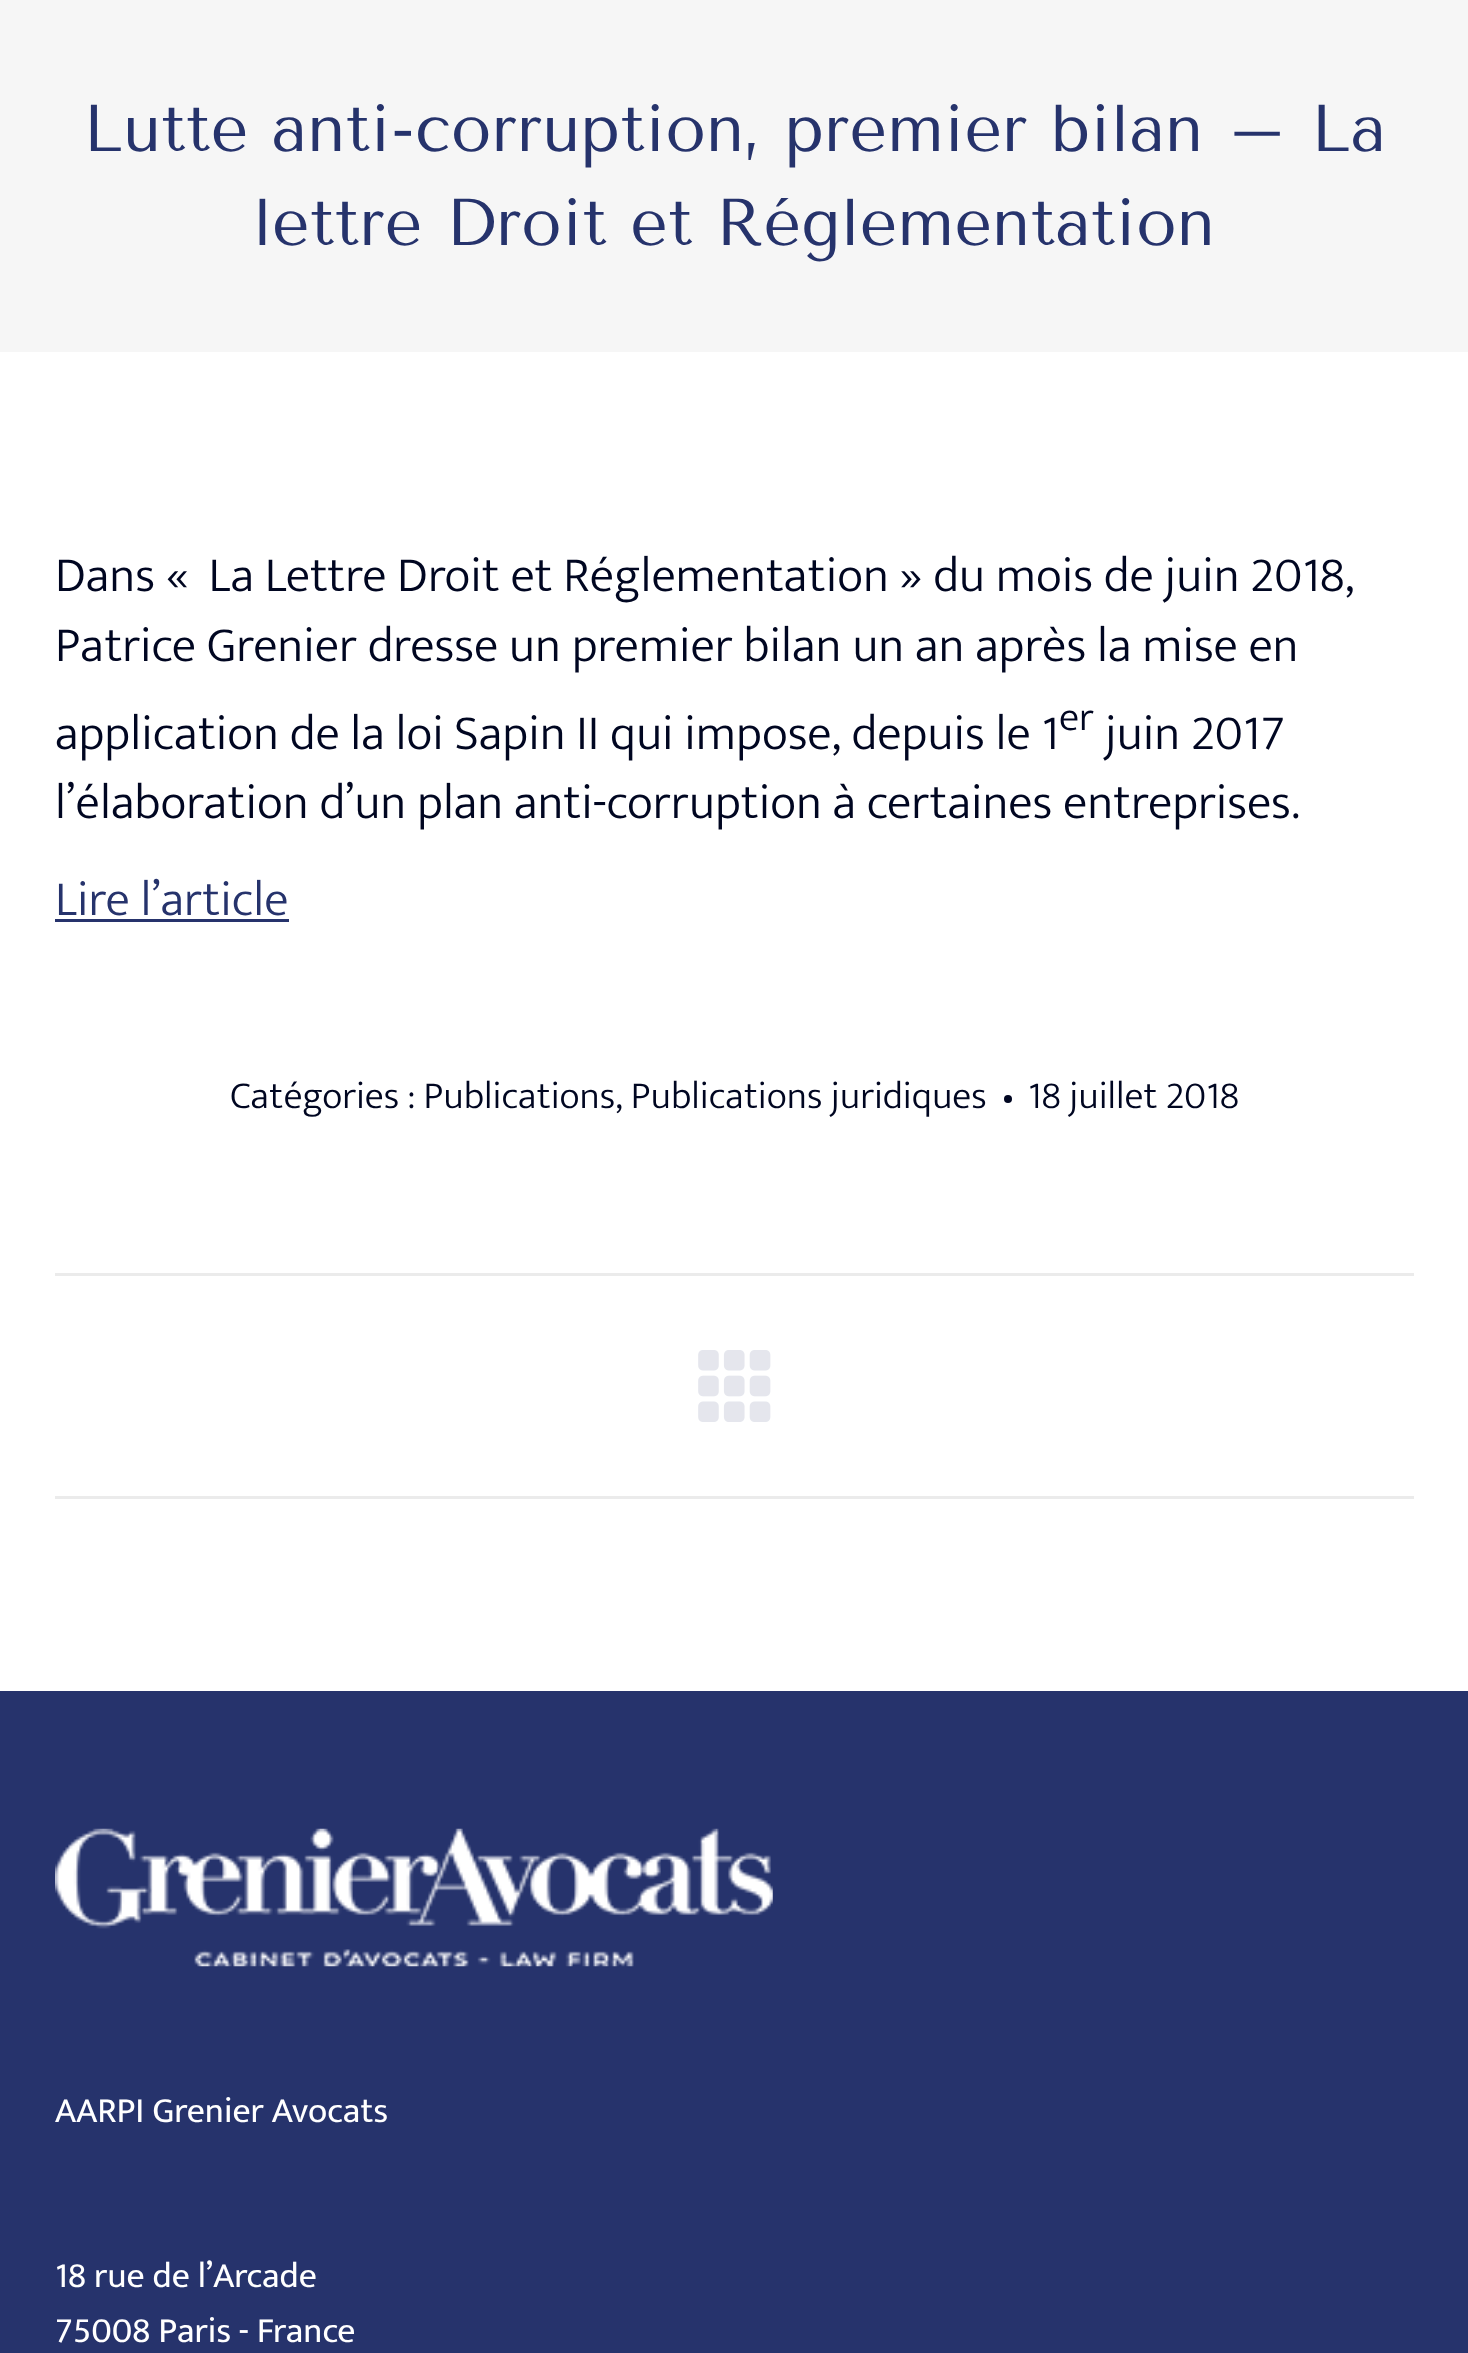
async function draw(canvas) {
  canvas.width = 1468;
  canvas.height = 2353;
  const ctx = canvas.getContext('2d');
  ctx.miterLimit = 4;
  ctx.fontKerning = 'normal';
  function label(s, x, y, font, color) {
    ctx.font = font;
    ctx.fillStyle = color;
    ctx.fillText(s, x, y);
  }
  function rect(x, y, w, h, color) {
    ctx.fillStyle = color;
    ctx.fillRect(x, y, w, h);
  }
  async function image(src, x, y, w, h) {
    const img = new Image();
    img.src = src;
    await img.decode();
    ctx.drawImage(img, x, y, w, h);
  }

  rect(0, 0, 1468, 2353, '#fff');
  rect(0, 0, 1468, 352, '#f6f6f6');
  label('Lutte anti-corruption, premier bilan – La', 83, 151, '66px Tenor Sans', '#26336c');
  label('lettre Droit et Réglementation', 253, 245, '66px Tenor Sans', '#26336c');
  label('Dans «  La Lettre Droit et Réglementation » du mois de juin 2018,', 55, 591, '300 49.5px Mukta', '#000621');
  label('Patrice Grenier dresse un premier bilan un an après la mise en', 55, 661, '300 49.5px Mukta', '#000621');
  label('application de la loi Sapin II qui impose, depuis le 1', 55, 749, '300 49.5px Mukta', '#000621');
  label('er', 1059, 730, '300 41px Mukta', '#000621');
  label('juin 2017', 1105, 749, '300 49.5px Mukta', '#000621');
  label('l’élaboration d’un plan anti-corruption à certaines entreprises.', 55, 818, '300 49.5px Mukta', '#000621');
  label('Lire l’article', 55, 915, '300 49.5px Mukta', '#26336c');
  rect(55, 919, 234, 3, '#26336c');
  label('Catégories : Publications, Publications juridiques', 230, 1108, '300 38.5px Mukta', '#000621');
  ctx.beginPath();
  ctx.arc(1008, 1099, 4, 0, 2 * Math.PI);
  ctx.fill();
  label('18 juillet 2018', 1028, 1108, '300 38.5px Mukta', '#000621');
  rect(55, 1273, 1359, 3, '#ebebeb');
  rect(55, 1496, 1359, 3, '#ebebeb');
  await image('assets/img1.png', 698, 1350, 73, 72);
  rect(0, 1691, 1468, 662, '#26336c');
  await image('assets/img2.png', 55, 1828, 718, 139);
  label('AARPI Grenier Avocats', 55, 2122, '35.75px Mukta', '#fff');
  label('18 rue de l’Arcade', 55, 2287, '35.75px Mukta', '#fff');
  label('75008 Paris - France', 55, 2342, '35.75px Mukta', '#fff');
}

draw(document.querySelector('canvas'));
